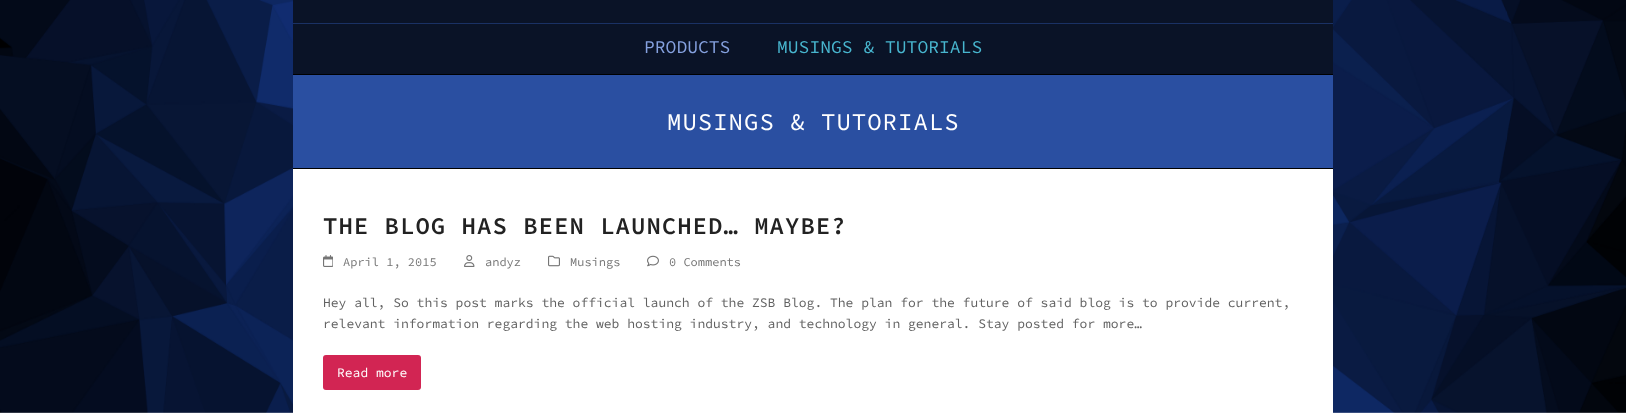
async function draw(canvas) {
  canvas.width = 1626;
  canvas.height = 413;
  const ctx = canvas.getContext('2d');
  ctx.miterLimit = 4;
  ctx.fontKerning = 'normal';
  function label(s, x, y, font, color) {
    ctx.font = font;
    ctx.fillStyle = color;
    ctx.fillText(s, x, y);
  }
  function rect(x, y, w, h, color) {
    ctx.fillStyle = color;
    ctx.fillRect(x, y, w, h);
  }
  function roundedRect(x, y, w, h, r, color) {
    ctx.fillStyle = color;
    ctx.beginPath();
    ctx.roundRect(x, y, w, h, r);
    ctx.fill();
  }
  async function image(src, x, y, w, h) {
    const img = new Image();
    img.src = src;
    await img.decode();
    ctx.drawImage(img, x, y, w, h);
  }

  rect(0, 0, 1626, 413, '#fff');
  await image('assets/img1.png', 0, 0, 1626, 413);
  rect(293, 169, 1040, 244, '#fff');
  rect(293, 0, 1040, 74, '#0a1327');
  rect(293, 23, 1040, 1, '#1a3164');
  label('PRODUCTS', 644, 53, '18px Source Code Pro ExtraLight', '#85a1df');
  label('MUSINGS & TUTORIALS', 777, 53, '18px Source Code Pro ExtraLight', '#48b6cf');
  rect(293, 75, 1040, 93, '#2a4fa1');
  rect(293, 74, 1040, 1, '#000');
  rect(293, 168, 1040, 1, '#000');
  ctx.letterSpacing = '1px';
  label('MUSINGS & TUTORIALS', 667, 130, '24px Source Code Pro ExtraLight', '#fff');
  label('THE BLOG HAS BEEN LAUNCHED… MAYBE?', 323, 234, '600 24px Source Code Pro ExtraLight', '#222');
  await image('assets/img2.png', 323, 255, 10, 12);
  ctx.letterSpacing = '0px';
  label('April 1, 2015', 343, 266, '12px Source Code Pro ExtraLight', '#757575');
  await image('assets/img3.png', 464, 255, 11, 12);
  label('andyz', 485, 266, '12px Source Code Pro ExtraLight', '#757575');
  await image('assets/img4.png', 548, 255, 12, 12);
  label('Musings', 570, 266, '12px Source Code Pro ExtraLight', '#757575');
  await image('assets/img5.png', 647, 255, 12, 12);
  label('0 Comments', 669, 266, '12px Source Code Pro ExtraLight', '#757575');
  label('Hey all, So this post marks the official launch of the ZSB Blog. The plan for the future of said blog is to provide current,', 323, 307, '13px Source Code Pro ExtraLight', '#616161');
  label('relevant information regarding the web hosting industry, and technology in general. Stay posted for more…', 323, 328, '13px Source Code Pro ExtraLight', '#616161');
  roundedRect(323, 355, 98, 35, 3, '#d22553');
  label('Read more', 337, 377, '13px Source Code Pro ExtraLight', '#fff');
}

draw(document.querySelector('canvas'));
